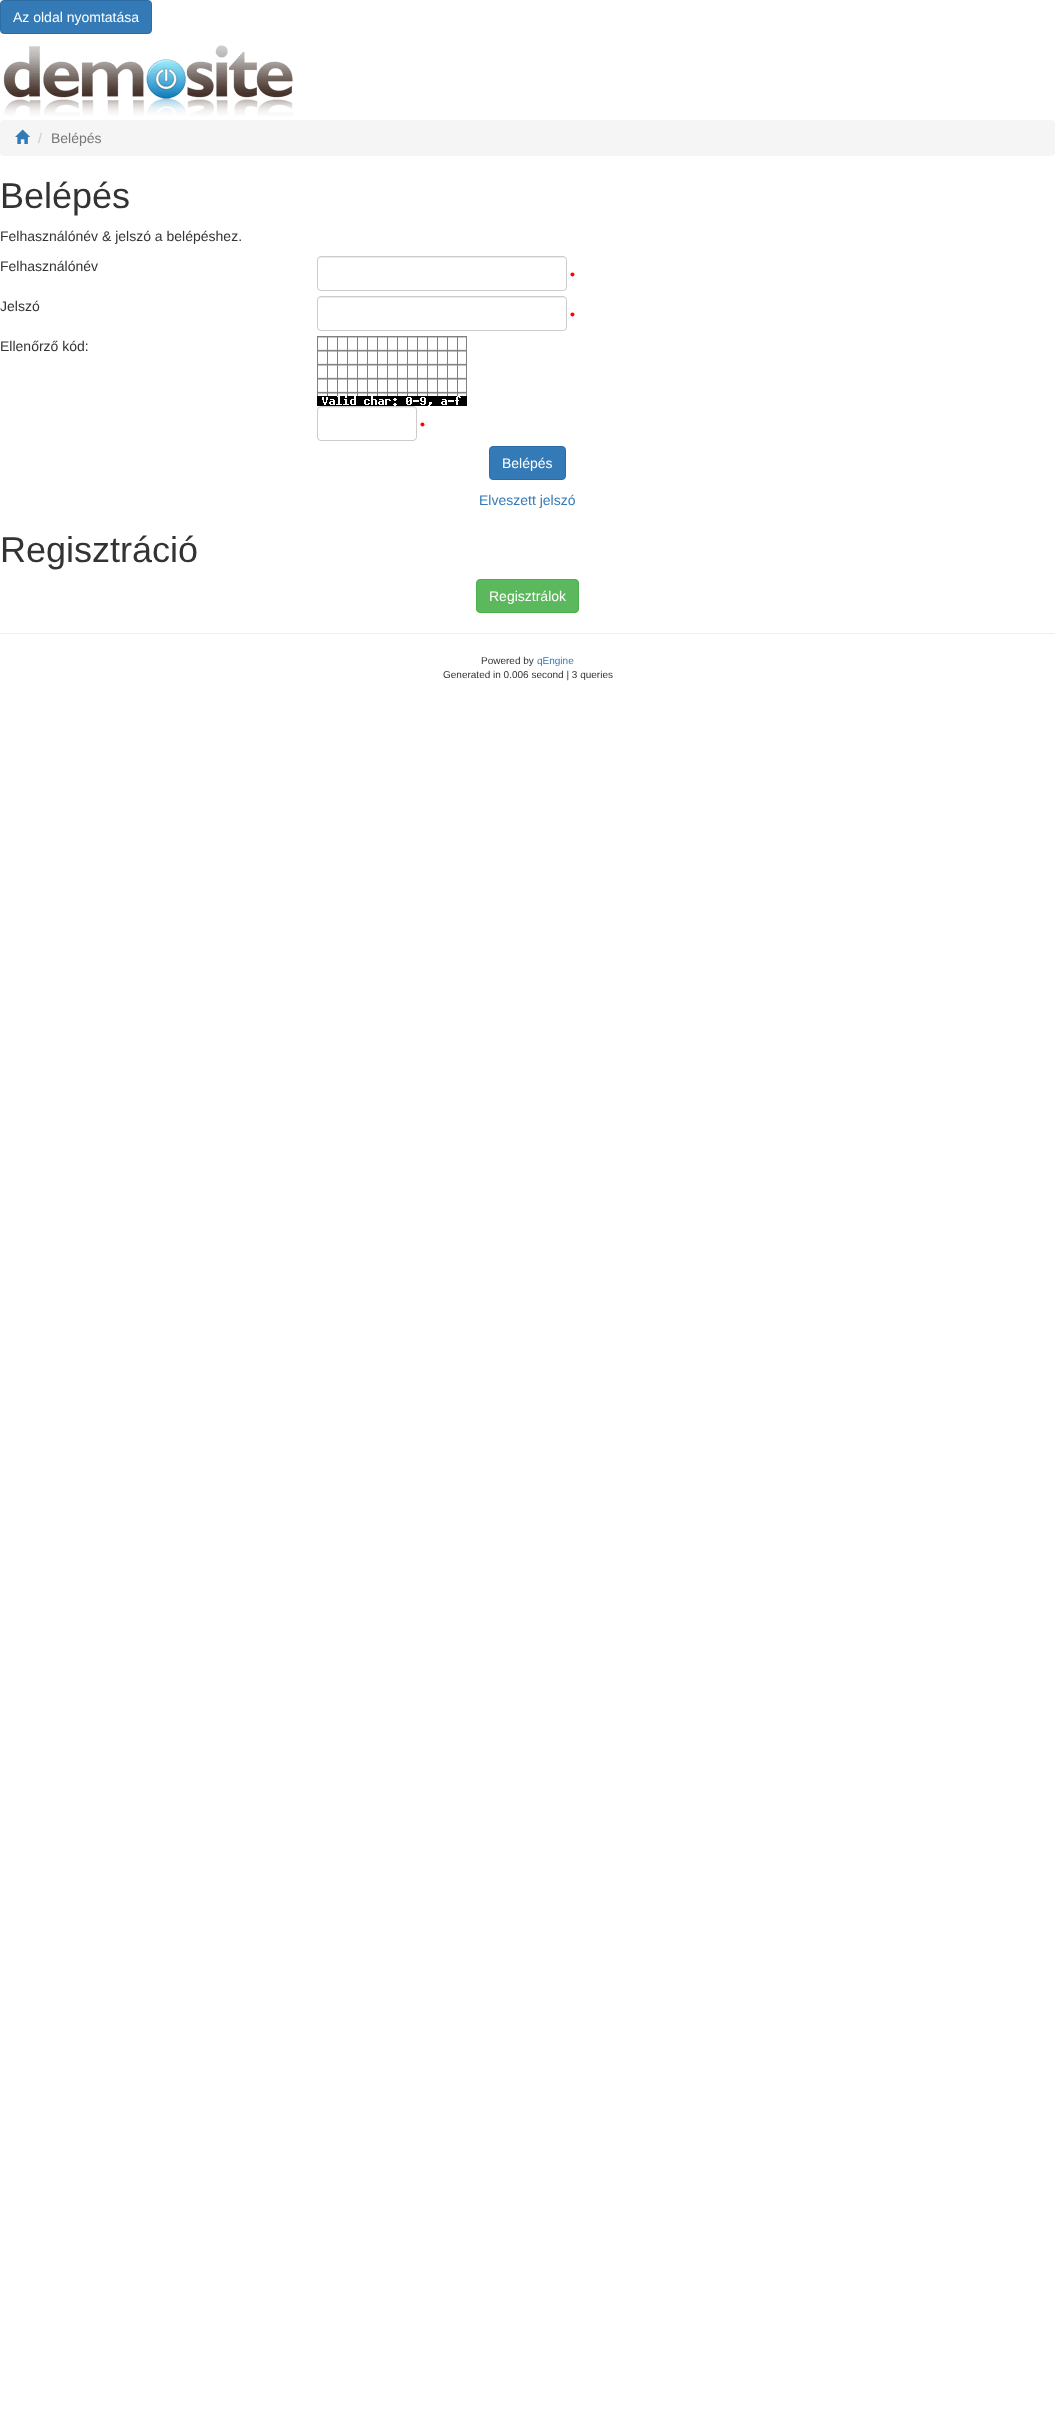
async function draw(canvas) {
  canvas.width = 1055;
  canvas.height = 2409;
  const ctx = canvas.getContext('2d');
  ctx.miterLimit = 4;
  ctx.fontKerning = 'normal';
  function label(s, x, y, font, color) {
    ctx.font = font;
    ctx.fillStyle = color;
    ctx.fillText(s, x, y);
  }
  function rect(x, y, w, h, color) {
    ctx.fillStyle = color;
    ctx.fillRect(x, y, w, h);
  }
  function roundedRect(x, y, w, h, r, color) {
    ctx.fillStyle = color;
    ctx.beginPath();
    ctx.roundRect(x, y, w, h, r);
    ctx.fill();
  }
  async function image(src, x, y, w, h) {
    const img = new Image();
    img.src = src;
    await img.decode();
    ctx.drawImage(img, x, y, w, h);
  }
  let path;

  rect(0, 0, 1055, 2409, '#fff');
  ctx.fillStyle = '#337ab7';
  ctx.beginPath();
  ctx.roundRect(0.5, 0.5, 151, 33, 3.5);
  ctx.fill();
  ctx.strokeStyle = '#2e6da4';
  ctx.stroke();
  label('Az oldal nyomtatása', 13, 22, '14px Liberation Sans', '#fff');
  await image('assets/img1.png', 3, 45, 290, 71);
  roundedRect(0, 120, 1055, 36, 4, '#f5f5f5');
  await image('assets/img2.png', 15, 129, 15, 15);
  label('/', 38, 143, '14px Liberation Sans', '#ccc');
  label('Belépés', 51, 143, '14px Liberation Sans', '#777');
  label('Belépés', 0, 208, '36px Liberation Sans', '#333');
  label('Felhasználónév & jelszó a belépéshez.', 0, 241, '14px Liberation Sans', '#333');
  label('Felhasználónév', 0, 271, '14px Liberation Sans', '#333');
  ctx.fillStyle = '#ececec';
  path = new Path2D('M321 258H563C565 258 566 259 566 261C566 259 565 257 563 257H321C319 257 318 259 318 261C318 259 319 258 321 258Z');
  ctx.fill(path);
  ctx.beginPath();
  ctx.roundRect(317.5, 256.5, 249, 34, 3.5);
  ctx.strokeStyle = '#ccc';
  ctx.stroke();
  label('•', 570, 279, 'bold 14px Liberation Sans', '#f00');
  label('Jelszó', 0, 311, '14px Liberation Sans', '#333');
  ctx.fillStyle = '#ececec';
  path = new Path2D('M321 298H563C565 298 566 299 566 301C566 299 565 297 563 297H321C319 297 318 299 318 301C318 299 319 298 321 298Z');
  ctx.fill(path);
  ctx.beginPath();
  ctx.roundRect(317.5, 296.5, 249, 34, 3.5);
  ctx.stroke();
  label('•', 570, 319, 'bold 14px Liberation Sans', '#f00');
  label('Ellenőrző kód:', 0, 351, '14px Liberation Sans', '#333');
  await image('assets/img3.png', 317, 336, 150, 70);
  ctx.fillStyle = '#ececec';
  path = new Path2D('M321 408H413C415 408 416 409 416 411C416 403 401 407 398 407H336C333 407 318 403 318 411C318 409 319 408 321 408Z');
  ctx.fill(path);
  ctx.beginPath();
  ctx.roundRect(317.5, 406.5, 99, 34, 3.5);
  ctx.stroke();
  label('•', 420, 429, 'bold 14px Liberation Sans', '#f00');
  ctx.fillStyle = '#337ab7';
  ctx.beginPath();
  ctx.roundRect(489.5, 446.5, 76, 33, 3.5);
  ctx.fill();
  ctx.strokeStyle = '#2e6da4';
  ctx.stroke();
  label('Belépés', 502, 468, '14px Liberation Sans', '#fff');
  label('Elveszett jelszó', 479, 505, '14px Liberation Sans', '#337ab7');
  label('Regisztráció', 0, 562, '36px Liberation Sans', '#333');
  ctx.fillStyle = '#5cb85c';
  ctx.beginPath();
  ctx.roundRect(476.5, 579.5, 102, 33, 3.5);
  ctx.fill();
  ctx.strokeStyle = '#4cae4c';
  ctx.stroke();
  label('Regisztrálok', 489, 601, '14px Liberation Sans', '#fff');
  rect(0, 633, 1055, 1, '#eee');
  label('Powered by', 481, 664, '10px Liberation Sans', '#333');
  label('qEngine', 537, 664, '10px Liberation Sans', '#337ab7');
  label('Generated in 0.006 second | 3 queries', 443, 678, '10px Liberation Sans', '#333');
}

draw(document.querySelector('canvas'));
